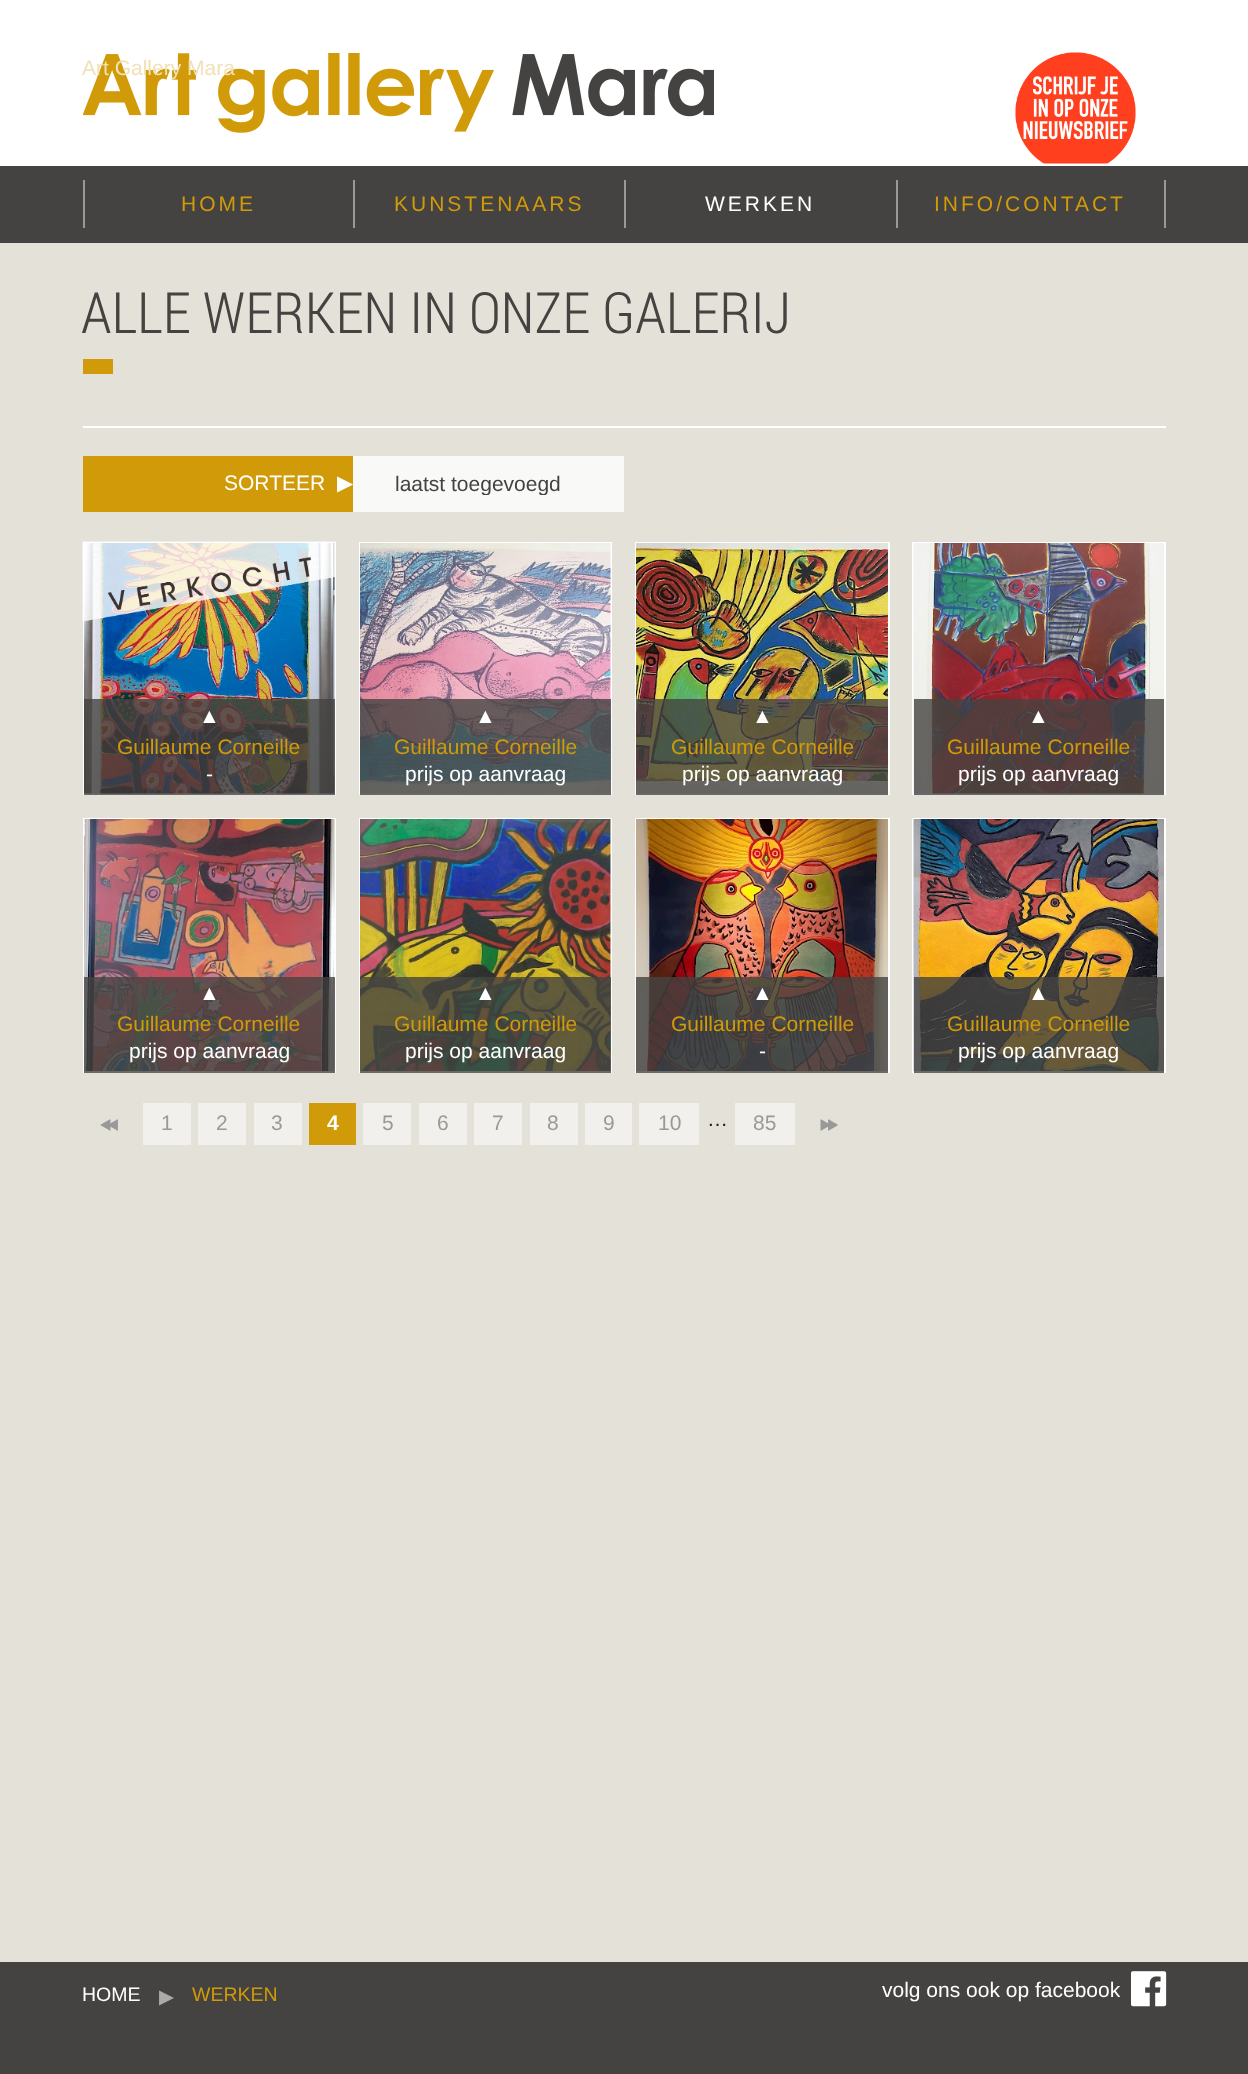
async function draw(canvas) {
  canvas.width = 1248;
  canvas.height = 2074;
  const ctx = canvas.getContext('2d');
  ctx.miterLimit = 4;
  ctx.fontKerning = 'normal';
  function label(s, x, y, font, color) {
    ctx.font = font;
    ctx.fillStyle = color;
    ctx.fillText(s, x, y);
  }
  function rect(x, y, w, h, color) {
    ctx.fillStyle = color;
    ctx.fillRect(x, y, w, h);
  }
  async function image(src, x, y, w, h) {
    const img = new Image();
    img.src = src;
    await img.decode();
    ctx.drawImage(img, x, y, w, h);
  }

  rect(0, 0, 1248, 2074, '#e3e1d8');
  rect(0, 0, 1248, 166, '#fff');
  await image('assets/img1.png', 83, 53, 631, 80);
  label('Art Gallery Mara', 82, 75, '21px Liberation Sans', '#f1e1b6');
  await image('assets/img2.png', 1015, 52, 121, 112);
  rect(0, 166, 1248, 77, '#454341');
  rect(83, 180, 2, 48, '#999');
  ctx.letterSpacing = '3px';
  label('HOME', 181, 211, '21px Liberation Sans', '#d09a08');
  rect(353, 180, 2, 48, '#999');
  label('KUNSTENAARS', 394, 211, '21px Liberation Sans', '#d09a08');
  rect(624, 180, 2, 48, '#999');
  label('WERKEN', 705, 211, '21px Liberation Sans', '#fff');
  rect(1164, 180, 2, 48, '#999');
  rect(896, 180, 2, 48, '#999');
  label('INFO/CONTACT', 934, 211, '21px Liberation Sans', '#d09a08');
  ctx.letterSpacing = '0px';
  label('ALLE WERKEN IN ONZE GALERIJ', 81, 333, '300 57px Roboto Condensed', '#454341');
  rect(83, 359, 30, 15, '#d09a08');
  rect(83, 426, 1083, 2, '#fff');
  rect(83, 456, 270, 56, '#d09a08');
  label('SORTEER', 224, 490, '21px Liberation Sans', '#fff');
  label('▶', 337, 490, '21px DejaVu Sans', '#fff');
  rect(353, 456, 271, 56, '#f9f9f7');
  ctx.save();
  ctx.beginPath();
  ctx.rect(395, 471, 187, 24);
  ctx.clip();
  label('laatst toegevoegd', 395, 491, '21px Liberation Sans', '#454341');
  ctx.restore();
  ctx.strokeStyle = '#fff';
  ctx.lineWidth = 2;
  ctx.strokeRect(84, 543, 251, 251);
  await image('assets/img4.png', 84, 543, 251, 251);
  await image('assets/img3.png', 82, 541, 254, 81);
  rect(84, 699, 251, 96, '#454341cc');
  label('▲', 199, 723, '21px Liberation Sans', '#fff');
  label('Guillaume Corneille', 117, 754, '21px Liberation Sans', '#d09a08');
  label('-', 206, 781, '21px Liberation Sans', '#fff');
  ctx.strokeRect(360, 543, 251, 251);
  await image('assets/img5.png', 360, 543, 251, 251);
  rect(360, 699, 251, 96, '#454341cc');
  label('▲', 475, 723, '21px Liberation Sans', '#fff');
  label('Guillaume Corneille', 394, 754, '21px Liberation Sans', '#d09a08');
  label('prijs op aanvraag', 405, 781, '21px Liberation Sans', '#fff');
  ctx.strokeRect(636, 543, 253, 251);
  await image('assets/img6.png', 636, 543, 252, 251);
  rect(636, 699, 252, 96, '#454341cc');
  label('▲', 752, 723, '21px Liberation Sans', '#fff');
  label('Guillaume Corneille', 671, 754, '21px Liberation Sans', '#d09a08');
  label('prijs op aanvraag', 682, 781, '21px Liberation Sans', '#fff');
  ctx.strokeRect(913, 543, 252, 251);
  await image('assets/img7.png', 913, 543, 251, 251);
  rect(914, 699, 250, 96, '#454341cc');
  label('▲', 1028, 723, '21px Liberation Sans', '#fff');
  label('Guillaume Corneille', 947, 754, '21px Liberation Sans', '#d09a08');
  label('prijs op aanvraag', 958, 781, '21px Liberation Sans', '#fff');
  ctx.strokeRect(84, 819, 251, 253);
  await image('assets/img8.png', 84, 819, 251, 252);
  rect(84, 977, 251, 96, '#454341cc');
  label('▲', 199, 1000, '21px Liberation Sans', '#fff');
  label('Guillaume Corneille', 117, 1031, '21px Liberation Sans', '#d09a08');
  label('prijs op aanvraag', 129, 1058, '21px Liberation Sans', '#fff');
  ctx.strokeRect(360, 819, 251, 253);
  await image('assets/img9.png', 360, 819, 251, 252);
  rect(360, 977, 251, 96, '#454341cc');
  label('▲', 475, 1000, '21px Liberation Sans', '#fff');
  label('Guillaume Corneille', 394, 1031, '21px Liberation Sans', '#d09a08');
  label('prijs op aanvraag', 405, 1058, '21px Liberation Sans', '#fff');
  ctx.strokeRect(636, 819, 253, 253);
  await image('assets/img10.png', 636, 819, 252, 252);
  rect(636, 977, 252, 96, '#454341cc');
  label('▲', 752, 1000, '21px Liberation Sans', '#fff');
  label('Guillaume Corneille', 671, 1031, '21px Liberation Sans', '#d09a08');
  label('-', 759, 1058, '21px Liberation Sans', '#fff');
  ctx.strokeRect(913, 819, 252, 253);
  await image('assets/img11.png', 913, 819, 251, 252);
  rect(914, 977, 250, 96, '#454341cc');
  label('▲', 1028, 1000, '21px Liberation Sans', '#fff');
  label('Guillaume Corneille', 947, 1031, '21px Liberation Sans', '#d09a08');
  label('prijs op aanvraag', 958, 1058, '21px Liberation Sans', '#fff');
  await image('assets/img12.png', 100, 1119, 18, 12);
  rect(143, 1103, 48, 42, '#f1f0ec');
  label('1', 161, 1130, '21px Liberation Sans', '#999');
  rect(198, 1103, 48, 42, '#f1f0ec');
  label('2', 216, 1130, '21px Liberation Sans', '#999');
  rect(254, 1103, 48, 42, '#f1f0ec');
  label('3', 271, 1130, '21px Liberation Sans', '#999');
  rect(309, 1103, 47, 42, '#d09a08');
  label('4', 327, 1130, 'bold 21px Liberation Sans', '#fff');
  rect(363, 1103, 48, 42, '#f1f0ec');
  label('5', 382, 1130, '21px Liberation Sans', '#999');
  rect(419, 1103, 48, 42, '#f1f0ec');
  label('6', 437, 1130, '21px Liberation Sans', '#999');
  rect(474, 1103, 48, 42, '#f1f0ec');
  label('7', 492, 1130, '21px Liberation Sans', '#999');
  rect(530, 1103, 48, 42, '#f1f0ec');
  label('8', 547, 1130, '21px Liberation Sans', '#999');
  rect(585, 1103, 47, 42, '#f1f0ec');
  label('9', 603, 1130, '21px Liberation Sans', '#999');
  rect(639, 1103, 60, 42, '#f1f0ec');
  label('10', 658, 1130, '21px Liberation Sans', '#999');
  label('…', 707, 1126, '21px Liberation Sans', '#222');
  rect(735, 1103, 60, 42, '#f1f0ec');
  label('85', 753, 1130, '21px Liberation Sans', '#999');
  await image('assets/img13.png', 820, 1119, 18, 12);
  rect(0, 1962, 1248, 112, '#454341');
  label('HOME', 82, 2001, '19.5px Liberation Sans', '#fff');
  label('▶', 159, 2003, '19.5px DejaVu Sans', '#aaa');
  label('WERKEN', 192, 2001, '19.5px Liberation Sans', '#d09a08');
  label('volg ons ook op facebook', 882, 1997, '21px Liberation Sans', '#fff');
  await image('assets/img14.png', 1131, 1971, 36, 36);
}

draw(document.querySelector('canvas'));
